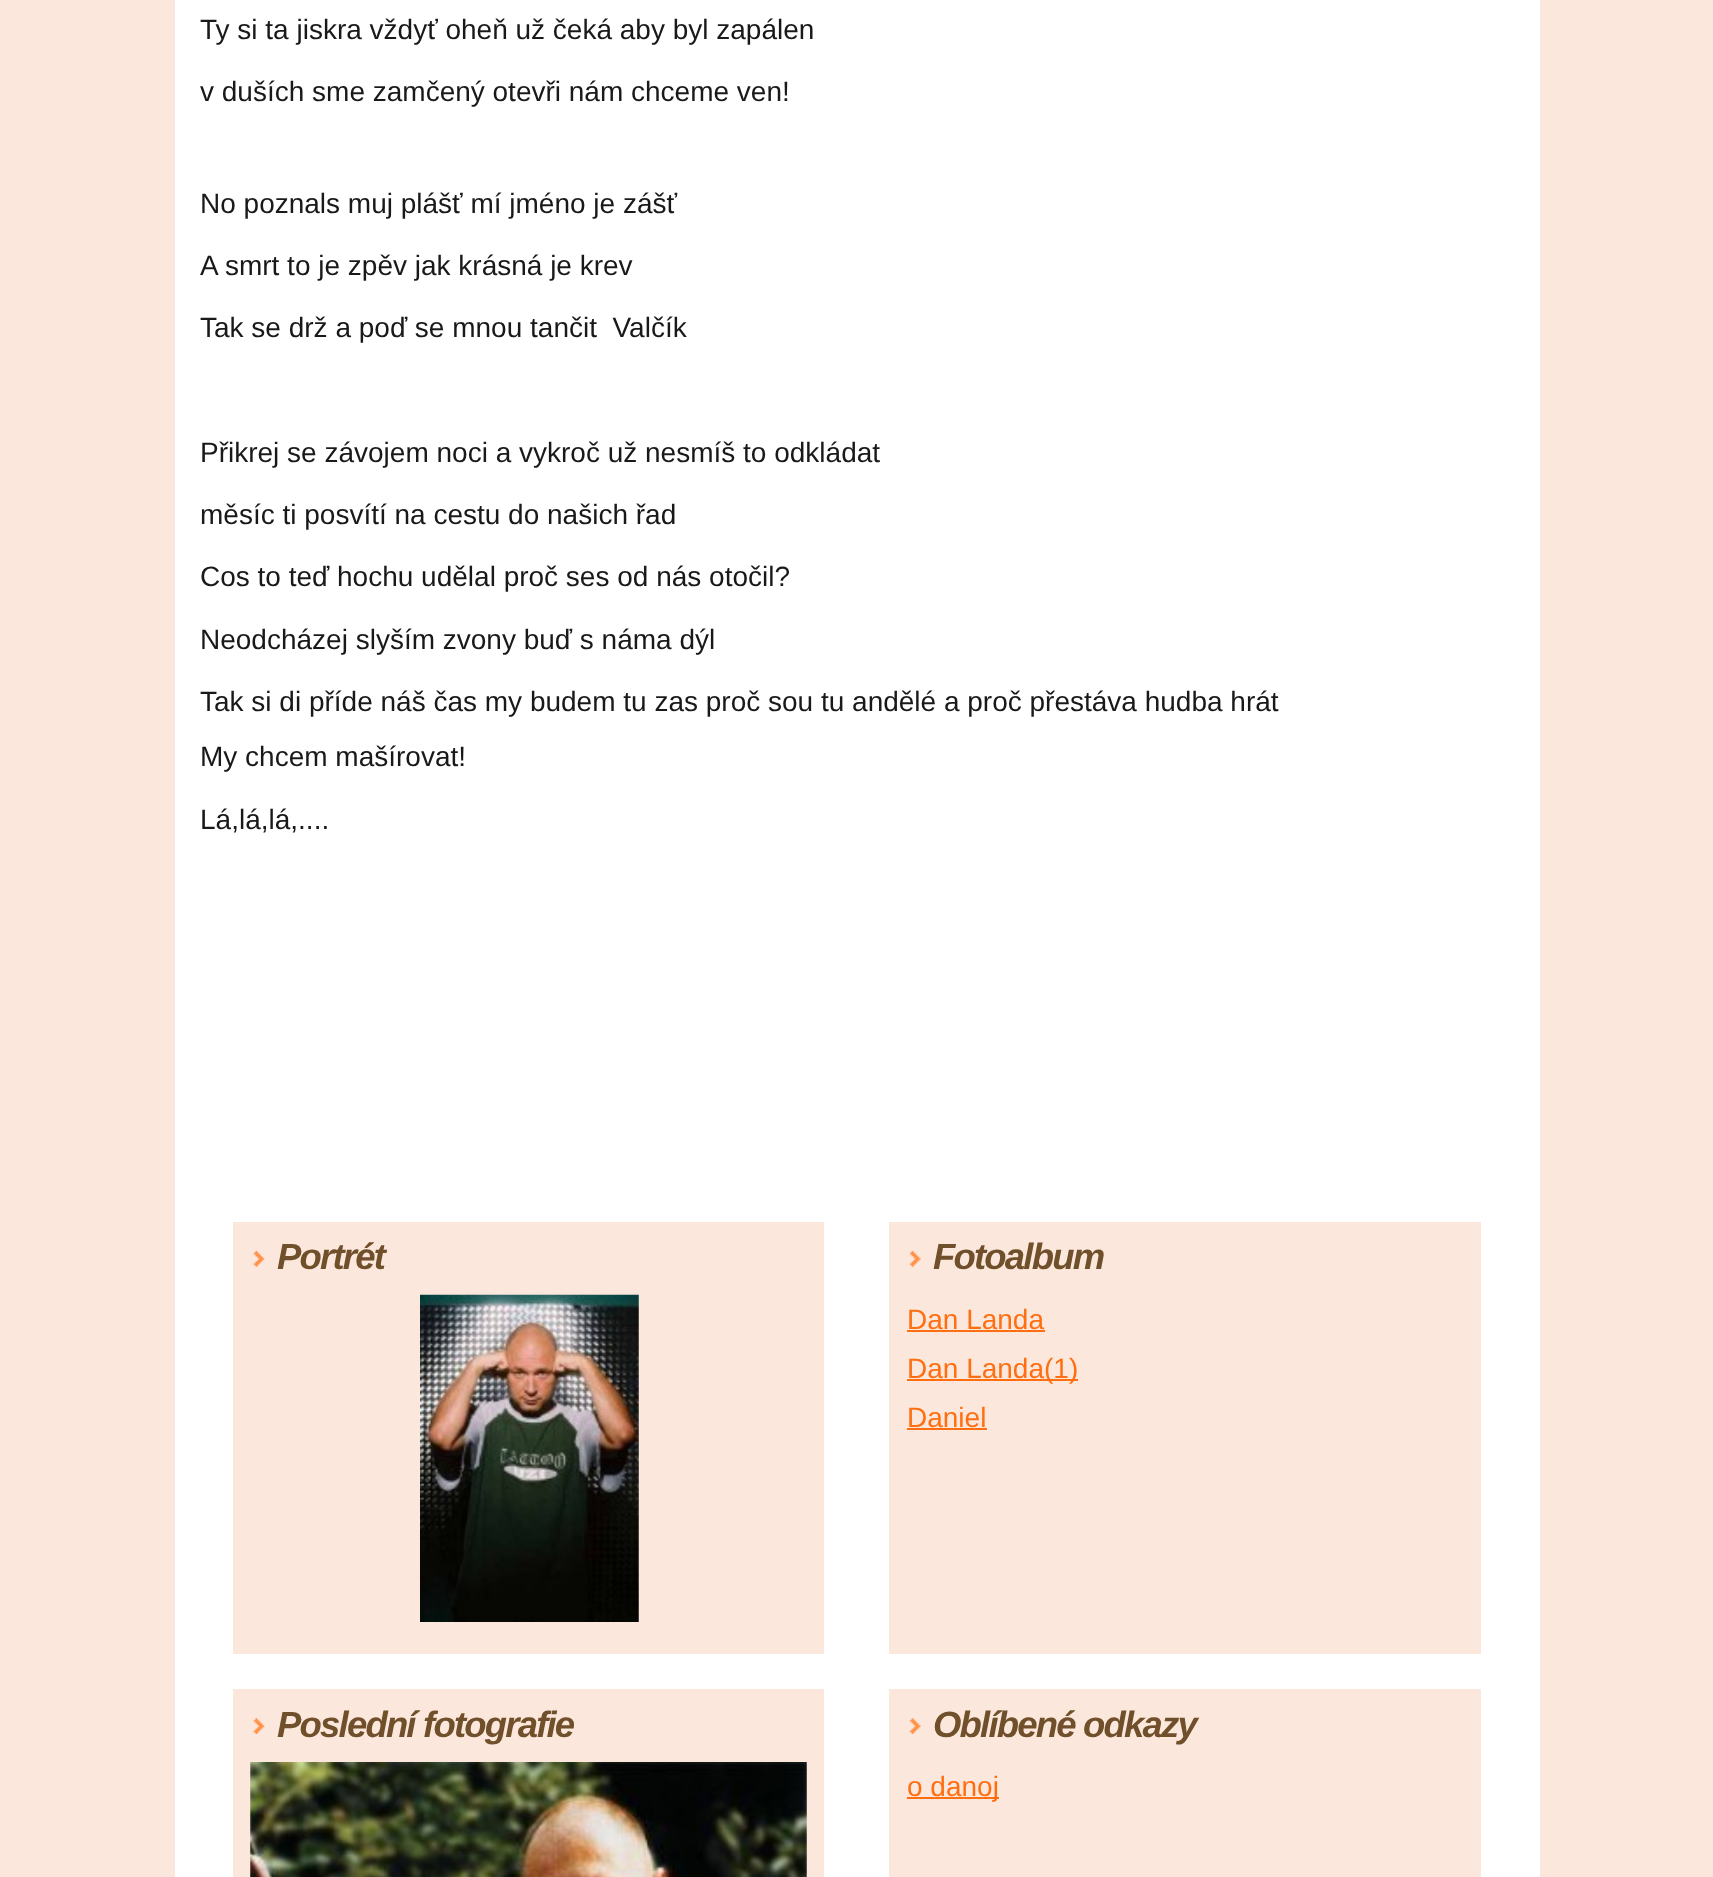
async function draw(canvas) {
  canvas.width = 1713;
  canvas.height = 1877;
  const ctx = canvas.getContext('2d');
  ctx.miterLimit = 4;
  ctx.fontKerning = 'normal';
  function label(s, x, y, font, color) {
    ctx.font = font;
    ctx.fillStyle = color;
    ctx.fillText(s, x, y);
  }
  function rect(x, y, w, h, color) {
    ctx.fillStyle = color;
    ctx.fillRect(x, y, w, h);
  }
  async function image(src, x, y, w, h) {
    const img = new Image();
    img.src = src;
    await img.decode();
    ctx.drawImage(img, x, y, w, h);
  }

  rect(0, 0, 1713, 1877, '#fce7dc');
  rect(175, 0, 1365, 1877, '#fff');
  label('Ty si ta jiskra vždyť oheň už čeká aby byl zapálen', 200, 39, '28px Liberation Sans', '#191919');
  label('v duších sme zamčený otevři nám chceme ven!', 200, 101, '28px Liberation Sans', '#191919');
  label('No poznals muj plášť mí jméno je zášť', 200, 213, '28px Liberation Sans', '#191919');
  label('A smrt to je zpěv jak krásná je krev', 200, 275, '28px Liberation Sans', '#191919');
  label('Tak se drž a poď se mnou tančit  Valčík', 200, 337, '28px Liberation Sans', '#191919');
  label('Přikrej se závojem noci a vykroč už nesmíš to odkládat', 200, 462, '28px Liberation Sans', '#191919');
  label('měsíc ti posvítí na cestu do našich řad', 200, 524, '28px Liberation Sans', '#191919');
  label('Cos to teď hochu udělal proč ses od nás otočil?', 200, 586, '28px Liberation Sans', '#191919');
  label('Neodcházej slyším zvony buď s náma dýl', 200, 649, '28px Liberation Sans', '#191919');
  label('Tak si di příde náš čas my budem tu zas proč sou tu andělé a proč přestáva hudba hrát', 200, 711, '28px Liberation Sans', '#191919');
  label('My chcem mašírovat!', 200, 766, '28px Liberation Sans', '#191919');
  label('Lá,lá,lá,....', 200, 829, '28px Liberation Sans', '#191919');
  rect(233, 1222, 591, 432, '#fce7dc');
  await image('assets/img1.png', 253, 1251, 12, 16);
  ctx.letterSpacing = '-1.8px';
  label('Portrét', 277, 1269, 'italic bold 36.5px Liberation Sans', '#70502b');
  await image('assets/img2.png', 420, 1294, 219, 328);
  rect(889, 1222, 592, 432, '#fce7dc');
  await image('assets/img3.png', 910, 1251, 11, 16);
  label('Fotoalbum', 933, 1269, 'italic bold 36.5px Liberation Sans', '#70502b');
  ctx.letterSpacing = '0px';
  label('Dan Landa', 907, 1329, '28px Liberation Sans', '#ff6f12');
  rect(907, 1330, 138, 2, '#ff6f12');
  rect(907, 1379, 171, 2, '#ff6f12');
  label('Dan Landa(1)', 907, 1378, '28px Liberation Sans', '#ff6f12');
  label('Daniel', 907, 1427, '28px Liberation Sans', '#ff6f12');
  rect(907, 1428, 80, 2, '#ff6f12');
  rect(233, 1689, 591, 188, '#fce7dc');
  await image('assets/img4.png', 253, 1718, 12, 16);
  ctx.letterSpacing = '-1.8px';
  label('Poslední fotografie', 277, 1737, 'italic bold 36.5px Liberation Sans', '#70502b');
  await image('assets/img5.png', 250, 1762, 557, 115);
  rect(889, 1689, 592, 188, '#fce7dc');
  await image('assets/img6.png', 910, 1718, 11, 16);
  label('Oblíbené odkazy', 933, 1737, 'italic bold 36.5px Liberation Sans', '#70502b');
  rect(907, 1797, 92, 2, '#ff6f12');
  ctx.letterSpacing = '0px';
  label('o danoj', 907, 1796, '28px Liberation Sans', '#ff6f12');
}

draw(document.querySelector('canvas'));
